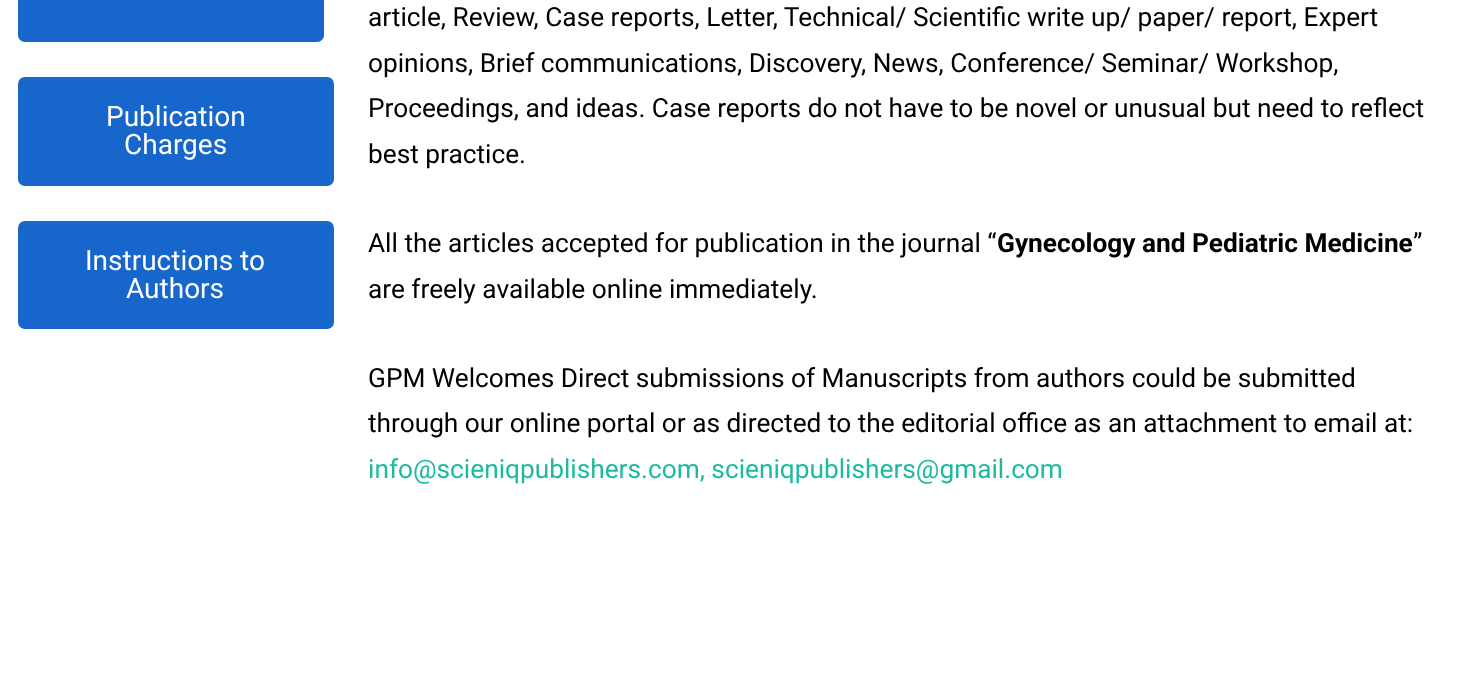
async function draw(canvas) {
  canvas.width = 1457;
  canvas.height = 692;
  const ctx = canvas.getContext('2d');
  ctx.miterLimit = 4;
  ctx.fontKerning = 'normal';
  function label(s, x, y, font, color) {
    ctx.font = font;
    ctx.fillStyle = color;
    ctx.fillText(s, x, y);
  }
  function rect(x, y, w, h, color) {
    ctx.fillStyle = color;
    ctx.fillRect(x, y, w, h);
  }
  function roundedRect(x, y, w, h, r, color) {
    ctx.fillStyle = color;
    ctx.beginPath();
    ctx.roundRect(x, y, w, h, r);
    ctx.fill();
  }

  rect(0, 0, 1457, 692, '#fff');
  roundedRect(18, -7, 306, 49, 7, '#1666cc');
  roundedRect(18, 77, 316, 109, 7, '#1666cc');
  label('Publication', 106, 126, '28px Roboto', '#fff');
  label('Charges', 124, 154, '28px Roboto', '#fff');
  roundedRect(18, 221, 316, 108, 7, '#1666cc');
  label('Instructions to', 85, 270, '28px Roboto', '#fff');
  label('Authors', 126, 298, '28px Roboto', '#fff');
  label('article, Review, Case reports, Letter, Technical/ Scientific write up/ paper/ report, Expert', 368, 26, '26.25px Roboto', '#000');
  label('opinions, Brief communications, Discovery, News, Conference/ Seminar/ Workshop,', 368, 72, '26.25px Roboto', '#000');
  label('Proceedings, and ideas. Case reports do not have to be novel or unusual but need to reflect', 368, 117, '26.25px Roboto', '#000');
  label('best practice.', 368, 163, '26.25px Roboto', '#000');
  label('All the articles accepted for publication in the journal “', 368, 252, '26.25px Roboto', '#000');
  label('Gynecology and Pediatric Medicine', 997, 252, 'bold 26.25px Roboto', '#000');
  label('”', 1413, 252, '26.25px Roboto', '#000');
  label('are freely available online immediately.', 368, 298, '26.25px Roboto', '#000');
  label('GPM Welcomes Direct submissions of Manuscripts from authors could be submitted', 368, 387, '26.25px Roboto', '#000');
  label('through our online portal or as directed to the editorial office as an attachment to email at:', 368, 432, '26.25px Roboto', '#000');
  label('info@scieniqpublishers.com, scieniqpublishers@gmail.com', 368, 478, '26.25px Roboto', '#1cba9f');
}

draw(document.querySelector('canvas'));
